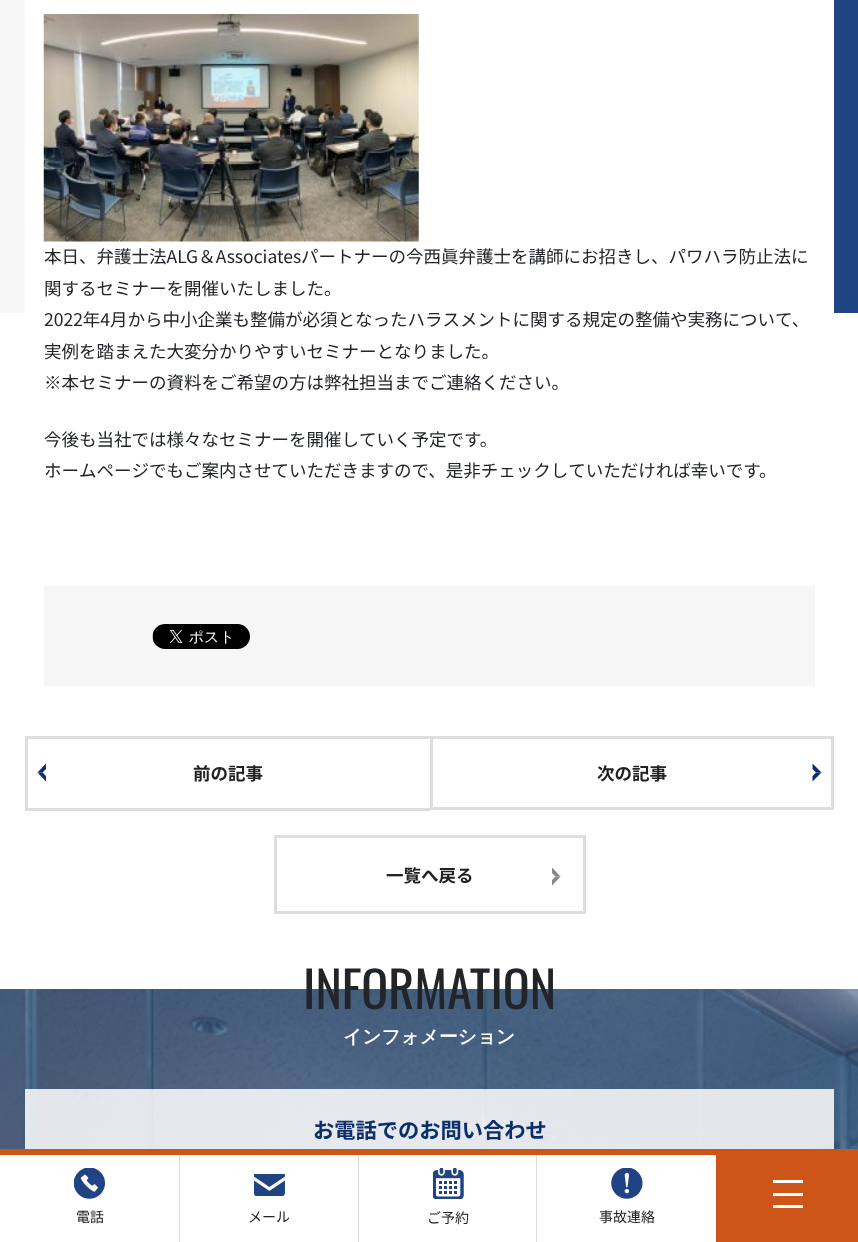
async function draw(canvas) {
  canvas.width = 858;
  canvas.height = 1242;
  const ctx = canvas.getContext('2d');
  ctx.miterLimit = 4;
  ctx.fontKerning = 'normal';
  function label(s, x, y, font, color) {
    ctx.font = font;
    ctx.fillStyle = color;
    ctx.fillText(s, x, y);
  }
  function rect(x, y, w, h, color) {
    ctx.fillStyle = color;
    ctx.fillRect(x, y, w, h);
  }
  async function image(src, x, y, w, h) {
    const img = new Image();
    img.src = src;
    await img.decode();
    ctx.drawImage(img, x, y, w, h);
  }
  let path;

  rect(0, 0, 858, 1242, '#fff');
  rect(0, 0, 25, 313, '#f6f6f6');
  rect(834, 0, 24, 313, '#204483');
  await image('assets/img1.png', 43, 14, 376, 228);
  label('本日、弁護士法ALG＆Associatesパートナーの今西眞弁護士を講師にお招きし、パワハラ防止法に', 44, 263, '17.5px Noto Sans JP', '#212529');
  label('関するセミナーを開催いたしました。', 44, 295, '17.5px Noto Sans JP', '#212529');
  label('2022年4月から中小企業も整備が必須となったハラスメントに関する規定の整備や実務について、', 44, 326, '17.5px Noto Sans JP', '#212529');
  label('実例を踏まえた大変分かりやすいセミナーとなりました。', 44, 358, '17.5px Noto Sans JP', '#212529');
  label('※本セミナーの資料をご希望の方は弊社担当までご連絡ください。', 44, 389, '17.5px Noto Sans JP', '#212529');
  label('今後も当社では様々なセミナーを開催していく予定です。', 44, 446, '17.5px Noto Sans JP', '#212529');
  label('ホームページでもご案内させていただきますので、是非チェックしていただければ幸いです。', 44, 477, '17.5px Noto Sans JP', '#212529');
  rect(44, 586, 771, 100, '#f6f6f6');
  await image('assets/img2.png', 152, 624, 98, 25);
  rect(25, 736, 405, 3, '#ddd');
  rect(25, 808, 405, 3, '#ddd');
  rect(25, 736, 3, 74, '#ddd');
  ctx.fillStyle = '#0c2e6a';
  path = new Path2D('M46 781.5L37.5 772.5H42.5L46 776Z');
  ctx.fill(path);
  path = new Path2D('M37.5 772.5L46 763.5V769L42.5 772.5Z');
  ctx.fill(path);
  label('前の記事', 193, 780, 'bold 17.5px Noto Sans JP', '#222');
  ctx.strokeStyle = '#ddd';
  ctx.lineWidth = 3;
  ctx.strokeRect(431.5, 737.5, 401, 71);
  label('次の記事', 597, 780, 'bold 17.5px Noto Sans JP', '#222');
  ctx.fillStyle = '#0c2e6a';
  path = new Path2D('M812.5 763.5L821.5 772.5H816L812.5 769Z');
  ctx.fill(path);
  path = new Path2D('M821.5 772.5L812.5 781.5V776L816 772.5Z');
  ctx.fill(path);
  ctx.strokeRect(275.5, 836.5, 309, 76);
  label('一覧へ戻る', 386, 882, 'bold 17.5px Noto Sans JP', '#222');
  ctx.fillStyle = '#878788';
  path = new Path2D('M552 867.5L560.5 876.5H555.5L552 873Z');
  ctx.fill(path);
  path = new Path2D('M560.5 876.5L552 885.5V880L555.5 876.5Z');
  ctx.fill(path);
  await image('assets/img3.png', 0, 989, 858, 160);
  label('INFORMATION', 303, 1009, '50px Oswald', '#212529');
  label('インフォメーション', 343, 1043, 'bold 18.75px WenQuanYi Zen Hei', '#fff');
  rect(25, 1089, 809, 60, '#ffffffd9');
  label('お電話でのお問い合わせ', 313, 1138, 'bold 21.25px Noto Sans JP', '#0c2e6a');
  rect(0, 1149, 858, 6, '#cc5517');
  await image('assets/img4.png', 74, 1168, 31, 31);
  label('電話', 76, 1222, '14px Noto Sans JP', '#222');
  rect(179, 1155, 1, 87, '#ddd');
  await image('assets/img5.png', 254, 1174, 31, 22);
  label('メール', 248, 1222, '14px Noto Sans JP', '#222');
  rect(358, 1155, 1, 87, '#ddd');
  await image('assets/img6.png', 433, 1168, 31, 31);
  label('ご予約', 427, 1223, '14px Noto Sans JP', '#222');
  rect(536, 1155, 1, 87, '#ddd');
  await image('assets/img7.png', 611, 1168, 32, 31);
  label('事故連絡', 599, 1222, '14px Noto Sans JP', '#222');
  rect(716, 1155, 142, 87, '#cc5517');
  rect(773, 1180, 30, 3, '#fff');
  rect(773, 1193, 30, 3, '#fff');
  rect(773, 1205, 30, 3, '#fff');
}

draw(document.querySelector('canvas'));
